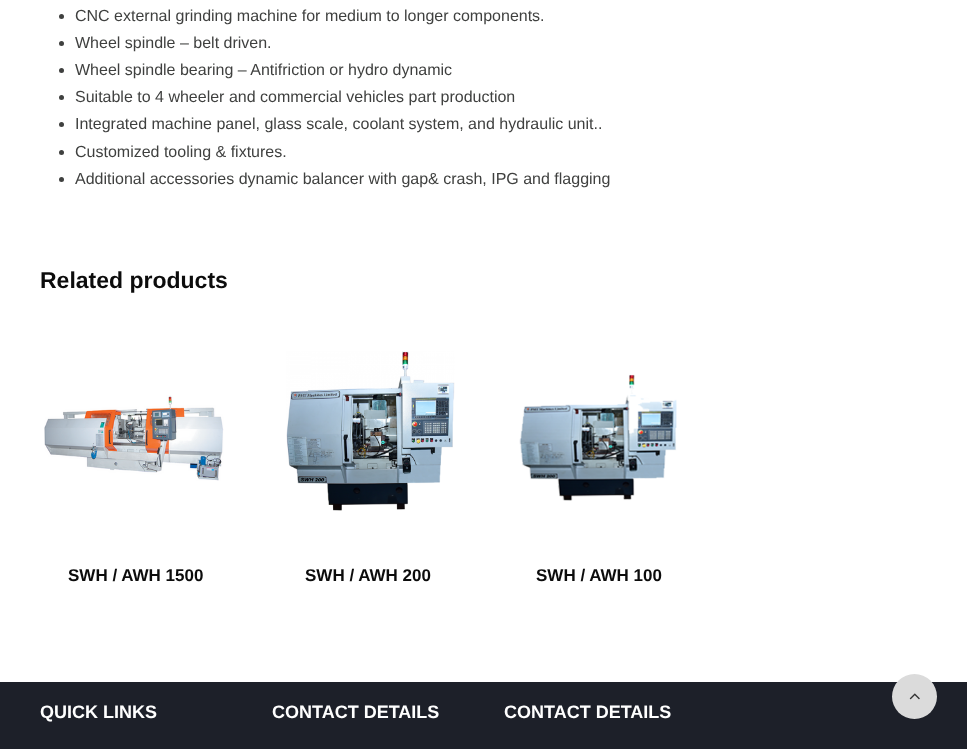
async function draw(canvas) {
  canvas.width = 967;
  canvas.height = 749;
  const ctx = canvas.getContext('2d');
  ctx.miterLimit = 4;
  ctx.fontKerning = 'normal';
  function label(s, x, y, font, color) {
    ctx.font = font;
    ctx.fillStyle = color;
    ctx.fillText(s, x, y);
  }
  function rect(x, y, w, h, color) {
    ctx.fillStyle = color;
    ctx.fillRect(x, y, w, h);
  }
  async function image(src, x, y, w, h) {
    const img = new Image();
    img.src = src;
    await img.decode();
    ctx.drawImage(img, x, y, w, h);
  }

  rect(0, 0, 967, 749, '#fff');
  ctx.fillStyle = '#3f403f';
  ctx.beginPath();
  ctx.arc(61.5, 16.5, 2.5, 0, 2 * Math.PI);
  ctx.fill();
  label('CNC external grinding machine for medium to longer components.', 75, 21, '16px Liberation Sans', '#3f403f');
  ctx.beginPath();
  ctx.arc(61.5, 43.5, 2.5, 0, 2 * Math.PI);
  ctx.fill();
  label('Wheel spindle – belt driven.', 75, 48, '16px Liberation Sans', '#3f403f');
  ctx.beginPath();
  ctx.arc(61.5, 70.5, 2.5, 0, 2 * Math.PI);
  ctx.fill();
  label('Wheel spindle bearing – Antifriction or hydro dynamic', 75, 75, '16px Liberation Sans', '#3f403f');
  ctx.beginPath();
  ctx.arc(61.5, 97.5, 2.5, 0, 2 * Math.PI);
  ctx.fill();
  label('Suitable to 4 wheeler and commercial vehicles part production', 75, 102, '16px Liberation Sans', '#3f403f');
  ctx.beginPath();
  ctx.arc(61.5, 124.5, 2.5, 0, 2 * Math.PI);
  ctx.fill();
  label('Integrated machine panel, glass scale, coolant system, and hydraulic unit..', 75, 129, '16px Liberation Sans', '#3f403f');
  ctx.beginPath();
  ctx.arc(61.5, 152.5, 2.5, 0, 2 * Math.PI);
  ctx.fill();
  label('Customized tooling & fixtures.', 75, 157, '16px Liberation Sans', '#3f403f');
  ctx.beginPath();
  ctx.arc(61.5, 179.5, 2.5, 0, 2 * Math.PI);
  ctx.fill();
  label('Additional accessories dynamic balancer with gap& crash, IPG and flagging', 75, 184, '16px Liberation Sans', '#3f403f');
  label('Related products', 40, 288, 'bold 23px Liberation Sans', '#0c0c0c');
  await image('assets/img1.png', 44, 395, 180, 86);
  label('SWH / AWH 1500', 68, 581, 'bold 17px Liberation Sans', '#0c0c0c');
  await image('assets/img2.png', 286, 351, 169, 160);
  label('SWH / AWH 200', 305, 581, 'bold 17px Liberation Sans', '#0c0c0c');
  await image('assets/img3.png', 519, 374, 158, 127);
  label('SWH / AWH 100', 536, 581, 'bold 17px Liberation Sans', '#0c0c0c');
  rect(0, 682, 967, 67, '#1d2029');
  label('QUICK LINKS', 40, 718, 'bold 18px Liberation Sans', '#fff');
  label('CONTACT DETAILS', 272, 718, 'bold 18px Liberation Sans', '#fff');
  label('CONTACT DETAILS', 504, 718, 'bold 18px Liberation Sans', '#fff');
  ctx.fillStyle = '#dbdbdb';
  ctx.beginPath();
  ctx.arc(914.5, 696.5, 22.5, 0, 2 * Math.PI);
  ctx.fill();
  await image('assets/img4.png', 909, 693, 11, 7);
}

draw(document.querySelector('canvas'));
